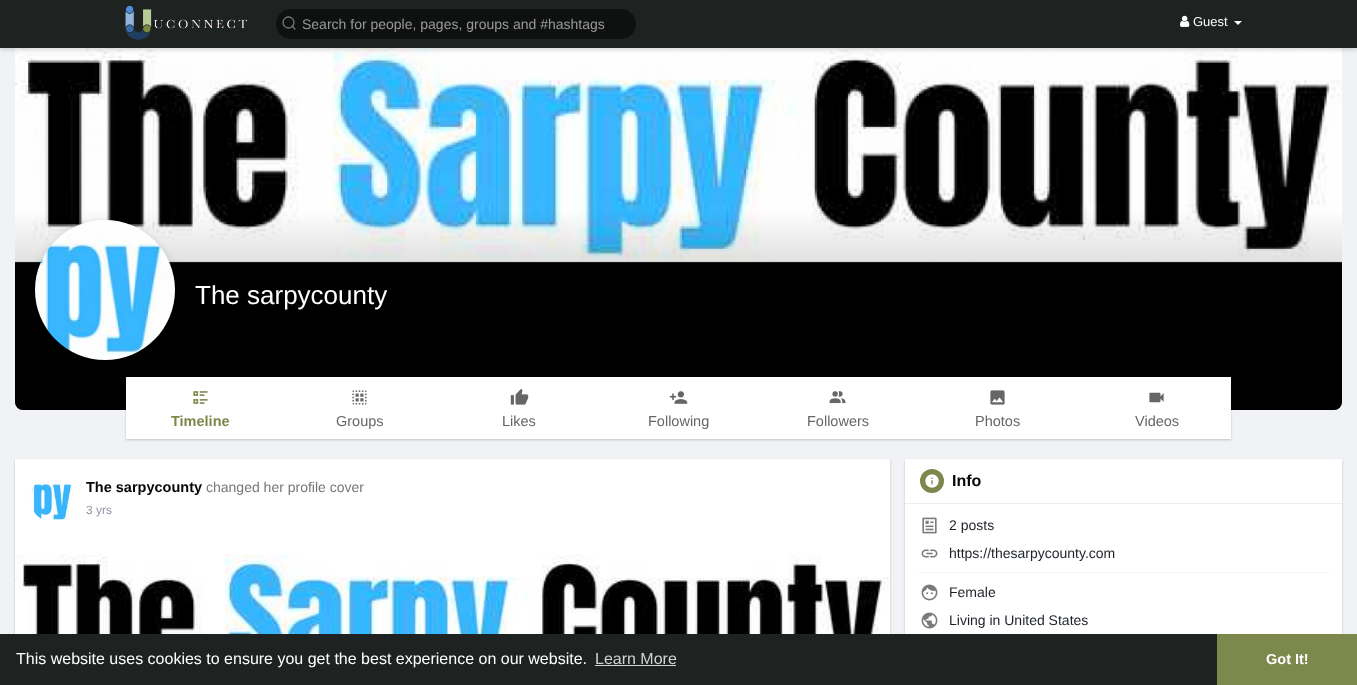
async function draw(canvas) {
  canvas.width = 1357;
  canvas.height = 685;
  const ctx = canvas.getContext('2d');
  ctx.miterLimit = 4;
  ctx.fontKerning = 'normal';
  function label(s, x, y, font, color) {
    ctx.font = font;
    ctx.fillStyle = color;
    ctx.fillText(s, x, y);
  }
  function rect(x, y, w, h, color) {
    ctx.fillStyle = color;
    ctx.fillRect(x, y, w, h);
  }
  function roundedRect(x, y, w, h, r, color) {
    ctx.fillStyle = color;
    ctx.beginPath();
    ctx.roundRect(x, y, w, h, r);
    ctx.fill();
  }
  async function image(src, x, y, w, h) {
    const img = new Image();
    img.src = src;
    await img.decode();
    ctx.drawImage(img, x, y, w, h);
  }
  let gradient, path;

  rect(0, 0, 1357, 685, '#f0f2f5');
  ctx.fillStyle = '#fff';
  ctx.beginPath();
  ctx.roundRect(15, 45, 1327, 365, [0, 0, 8, 8]);
  ctx.fill();
  await image('assets/img3.png', 15, 48, 1327, 362);
  ctx.fillStyle = '#00000026';
  ctx.filter = 'blur(2px)';
  ctx.beginPath();
  ctx.rect(0, 2, 1357, 48);
  ctx.fill();
  ctx.filter = 'none';
  rect(0, 0, 1357, 48, '#1e2321');
  await image('assets/img1.png', 125, 5, 123, 35);
  roundedRect(276, 9, 360, 30, 15, '#0f1110');
  ctx.beginPath();
  ctx.arc(288.5, 22.5, 5.5, 0, 2 * Math.PI);
  ctx.strokeStyle = '#787878';
  ctx.lineWidth = 1.3;
  ctx.stroke();
  path = new Path2D('M295 29L292 26');
  ctx.lineCap = 'round';
  ctx.lineJoin = 'round';
  ctx.stroke(path);
  label('Search for people, pages, groups and #hashtags', 302, 29, '14px Liberation Sans', '#999');
  await image('assets/img2.png', 1180, 15, 10, 12);
  label('Guest', 1193, 26, '13px Liberation Sans', '#fff');
  path = new Path2D('M1234 21H1242L1238 25Z');
  ctx.fill(path);
  gradient = ctx.createLinearGradient(679, 210, 679, 410);
  gradient.addColorStop(0, '#00000000');
  gradient.addColorStop(1, '#00000073');
  ctx.fillStyle = gradient;
  ctx.beginPath();
  ctx.roundRect(15, 210, 1327, 200, 8);
  ctx.fill();
  ctx.fillStyle = '#00000033';
  ctx.filter = 'blur(1px)';
  ctx.beginPath();
  ctx.rect(126, 378, 1105, 62);
  ctx.fill();
  ctx.filter = 'none';
  rect(126, 377, 1105, 62, '#fff');
  ctx.fillStyle = '#00000026';
  ctx.filter = 'blur(5px)';
  ctx.beginPath();
  ctx.roundRect(35, 222, 140, 140, 70);
  ctx.fill();
  ctx.filter = 'none';
  await image('assets/img4.png', 35, 220, 140, 140);
  label('The sarpycounty', 195, 304, '26px Liberation Sans', '#fff');
  await image('assets/img5.png', 193, 391, 15, 13);
  label('Timeline', 171, 426, 'bold 14.5px Liberation Sans', '#7c884c');
  await image('assets/img6.png', 352, 390, 15, 15);
  label('Groups', 336, 426, '14.5px Liberation Sans', '#666');
  await image('assets/img7.png', 510, 388, 19, 17);
  label('Likes', 502, 426, '14.5px Liberation Sans', '#666');
  await image('assets/img8.png', 669, 391, 19, 13);
  label('Following', 648, 426, '14.5px Liberation Sans', '#666');
  await image('assets/img9.png', 829, 391, 17, 13);
  label('Followers', 807, 426, '14.5px Liberation Sans', '#666');
  await image('assets/img10.png', 990, 390, 15, 15);
  label('Photos', 975, 426, '14.5px Liberation Sans', '#666');
  await image('assets/img11.png', 1149, 392, 15, 11);
  label('Videos', 1135, 426, '14.5px Liberation Sans', '#666');
  ctx.fillStyle = '#00000033';
  ctx.filter = 'blur(1px)';
  ctx.beginPath();
  ctx.rect(15, 460, 875, 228);
  ctx.fill();
  ctx.filter = 'none';
  rect(15, 459, 875, 95, '#fff');
  await image('assets/img12.png', 31, 481, 43, 39);
  label('The sarpycounty', 86, 492, 'bold 14.5px Liberation Sans', '#050505');
  label('changed her profile cover', 206, 492, '14px Liberation Sans', '#777');
  label('3 yrs', 86, 514, '12px Liberation Sans', '#9197a3');
  await image('assets/img13.png', 15, 554, 875, 80);
  ctx.fillStyle = '#00000033';
  ctx.filter = 'blur(1px)';
  ctx.beginPath();
  ctx.rect(905, 460, 437, 181);
  ctx.fill();
  ctx.filter = 'none';
  rect(905, 459, 437, 175, '#fff');
  rect(905, 503, 437, 1, '#eee');
  ctx.fillStyle = '#7c884c';
  ctx.beginPath();
  ctx.arc(932, 481, 12, 0, 2 * Math.PI);
  ctx.fill();
  await image('assets/img14.png', 925, 474, 14, 14);
  label('Info', 952, 486, 'bold 16px Liberation Sans', '#050505');
  await image('assets/img15.png', 922, 517, 15, 17);
  label('2 posts', 949, 530, '14px Liberation Sans', '#1d2129');
  await image('assets/img16.png', 921, 549, 17, 9);
  label('https://thesarpycounty.com', 949, 558, '14px Liberation Sans', '#1d2129');
  rect(918, 572, 411, 1, '#f4f4f4');
  await image('assets/img17.png', 921, 584, 17, 17);
  label('Female', 949, 597, '14px Liberation Sans', '#1d2129');
  await image('assets/img18.png', 921, 612, 17, 17);
  label('Living in United States', 949, 625, '14px Liberation Sans', '#1d2129');
  rect(0, 634, 1217, 51, '#1e2321');
  label('This website uses cookies to ensure you get the best experience on our website.', 16, 664, '16px Liberation Sans', '#fff');
  label('Learn More', 595, 664, '16px Liberation Sans', '#d2d3d3');
  rect(595, 665, 81, 1, '#d2d3d3');
  rect(1217, 634, 140, 51, '#7c884c');
  label('Got It!', 1266, 664, 'bold 14.5px Liberation Sans', '#fff');
}

draw(document.querySelector('canvas'));
